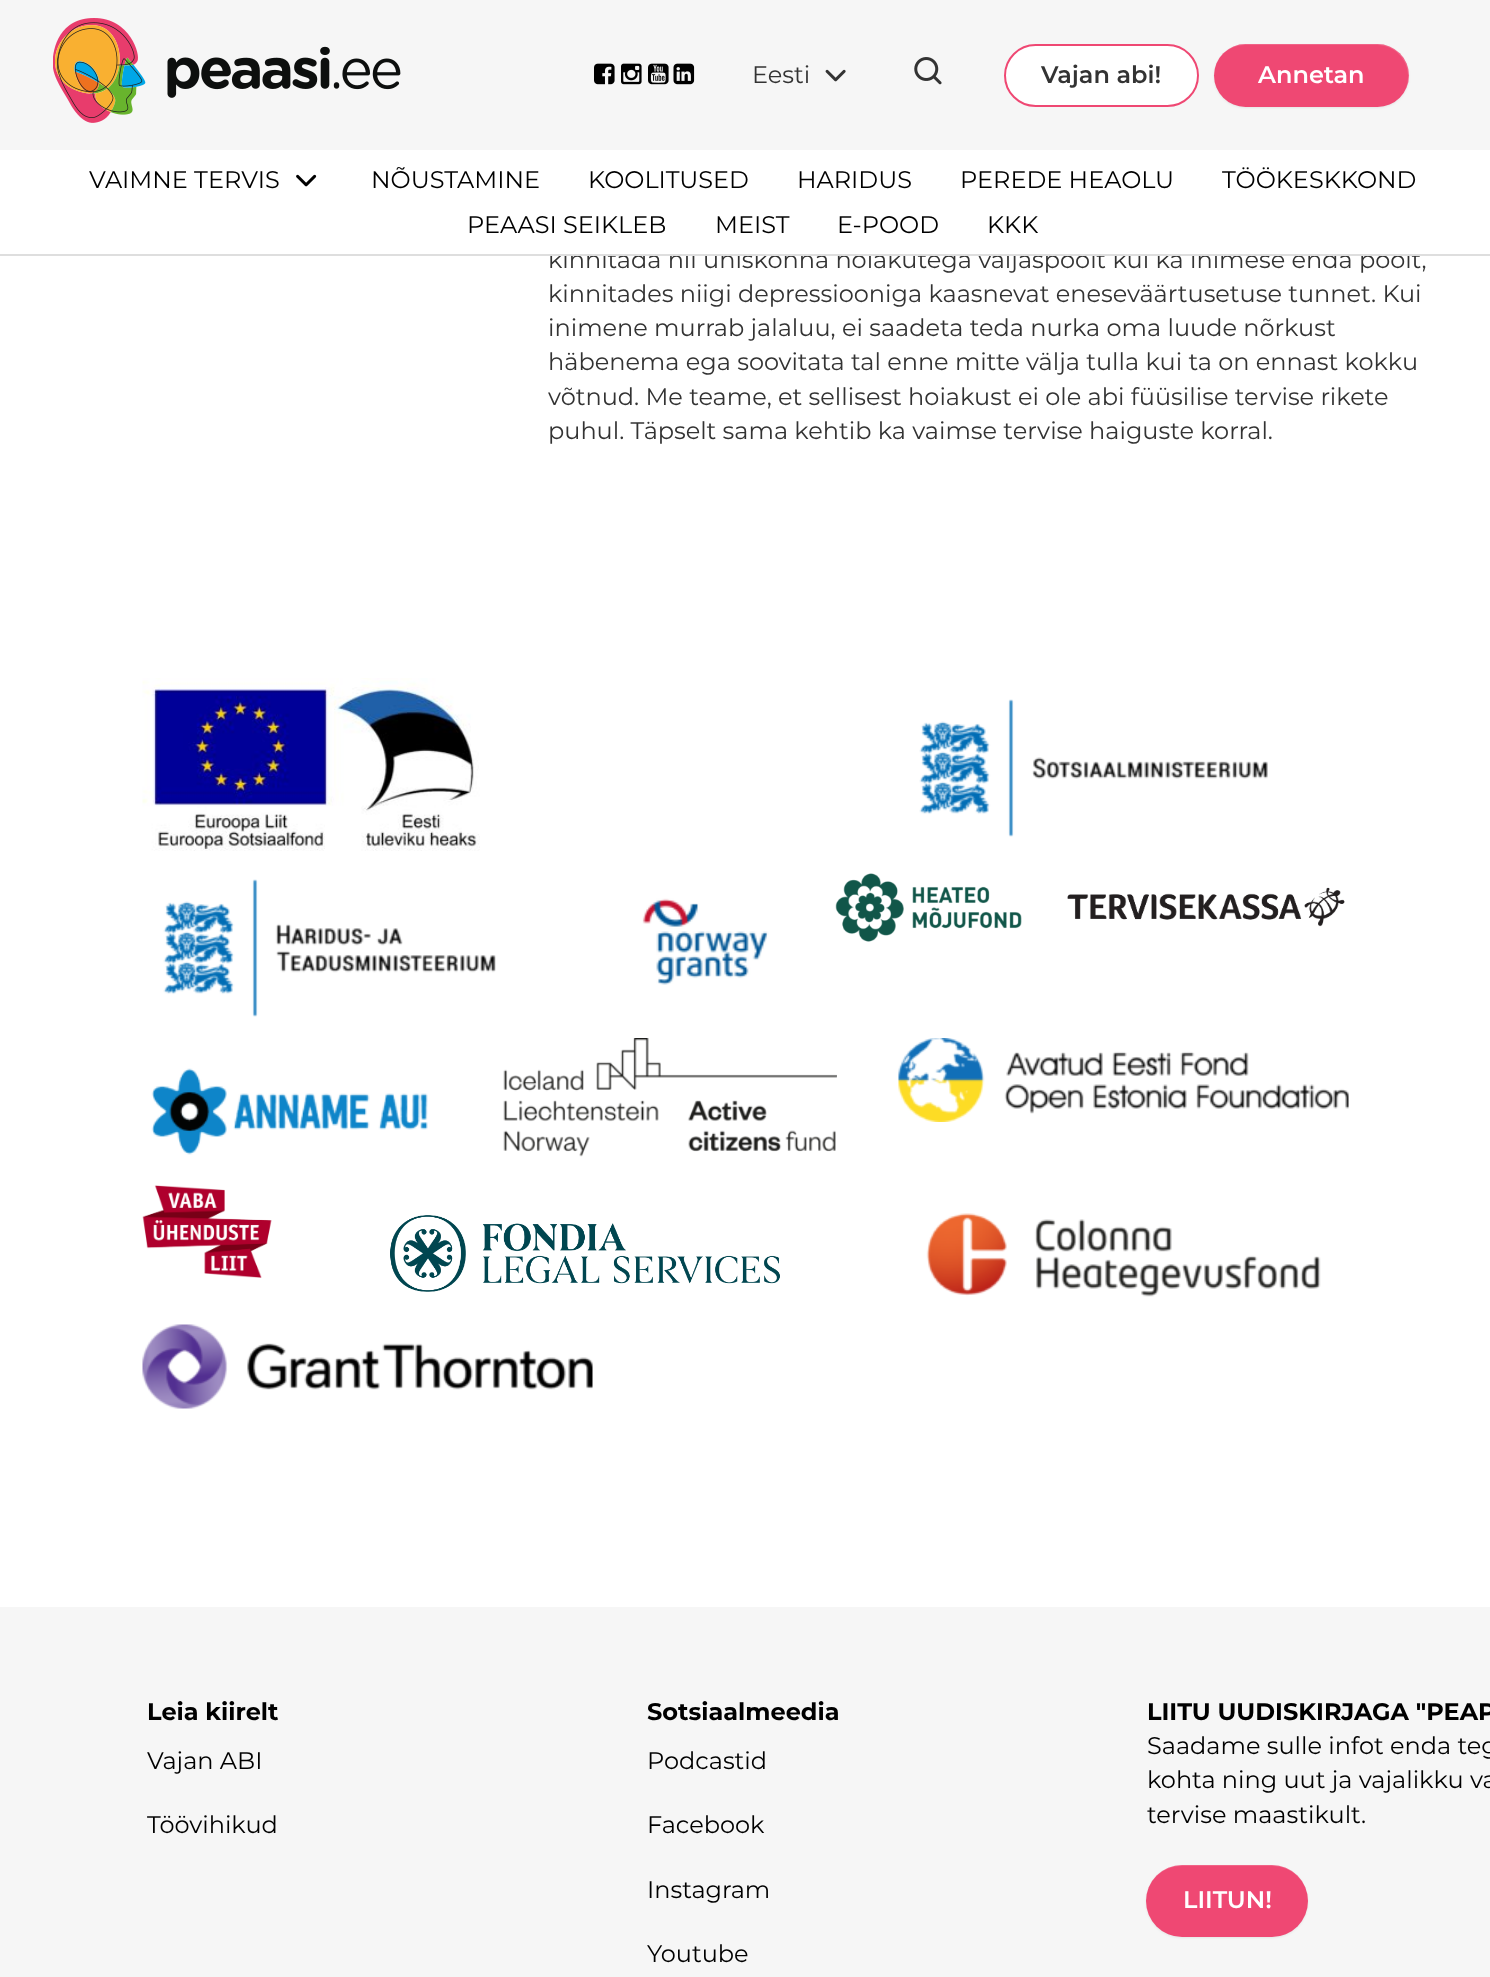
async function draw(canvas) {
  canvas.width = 1490;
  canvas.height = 1977;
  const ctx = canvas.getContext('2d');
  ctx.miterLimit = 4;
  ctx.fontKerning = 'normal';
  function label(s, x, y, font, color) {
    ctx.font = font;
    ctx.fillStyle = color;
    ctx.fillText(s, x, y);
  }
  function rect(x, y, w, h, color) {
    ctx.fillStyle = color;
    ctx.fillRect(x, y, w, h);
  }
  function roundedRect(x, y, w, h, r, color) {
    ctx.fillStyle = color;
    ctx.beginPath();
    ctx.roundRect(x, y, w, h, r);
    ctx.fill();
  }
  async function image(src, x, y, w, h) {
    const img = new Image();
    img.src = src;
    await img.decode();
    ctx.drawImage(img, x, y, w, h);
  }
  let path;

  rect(0, 0, 1490, 1977, '#fff');
  rect(0, 0, 1490, 150, '#f6f6f6');
  await image('assets/img1.png', 53, 18, 348, 105);
  await image('assets/img2.png', 594, 63, 21, 22);
  await image('assets/img3.png', 621, 63, 21, 22);
  await image('assets/img4.png', 648, 63, 21, 22);
  await image('assets/img5.png', 673, 63, 22, 22);
  label('Eesti', 752, 83, '24px Montserrat', '#333');
  await image('assets/img6.png', 825, 69, 21, 13);
  await image('assets/img7.png', 914, 57, 28, 28);
  ctx.fillStyle = '#fff';
  ctx.beginPath();
  ctx.roundRect(1005, 45, 193, 61, 30.5);
  ctx.fill();
  ctx.strokeStyle = '#ef4873';
  ctx.lineWidth = 2;
  ctx.stroke();
  label('Vajan abi!', 1041, 83, '600 24px Montserrat', '#333');
  ctx.fillStyle = '#00000012';
  ctx.filter = 'blur(1px)';
  ctx.beginPath();
  ctx.roundRect(1214, 45, 195, 63, 31.5);
  ctx.fill();
  ctx.filter = 'none';
  roundedRect(1214, 44, 195, 63, 31.5, '#ef4873');
  ctx.fillStyle = '#ffffff26';
  path = new Path2D('M1245 45H1377C1394 45 1408 59 1408 76C1408 84 1405 92 1400 98C1406 92 1409 84 1409 76C1409 58 1395 44 1378 44H1246C1228 44 1214 58 1214 76C1214 59 1228 45 1245 45Z');
  ctx.fill(path);
  label('Annetan', 1258, 83, '600 24px Montserrat', '#fff');
  label('kinnitada nii ühiskonna hoiakutega väljaspoolt kui ka inimese enda poolt,', 548, 268, '24px Montserrat', '#333');
  rect(550, 250, 866, 4, '#fff');
  rect(0, 254, 1490, 2, '#dedede');
  label('VAIMNE TERVIS', 89, 188, '24px Montserrat', '#000');
  await image('assets/img8.png', 296, 174, 21, 13);
  label('NÕUSTAMINE', 371, 188, '24px Montserrat', '#000');
  label('KOOLITUSED', 588, 188, '24px Montserrat', '#000');
  label('HARIDUS', 797, 188, '24px Montserrat', '#000');
  label('PEREDE HEAOLU', 960, 188, '24px Montserrat', '#000');
  label('TÖÖKESKKOND', 1222, 188, '24px Montserrat', '#000');
  label('PEAASI SEIKLEB', 467, 233, '24px Montserrat', '#000');
  label('MEIST', 715, 233, '24px Montserrat', '#000');
  label('E-POOD', 837, 233, '24px Montserrat', '#000');
  label('KKK', 987, 233, '24px Montserrat', '#000');
  label('kinnitades niigi depressiooniga kaasnevat eneseväärtusetuse tunnet. Kui', 548, 302, '24px Montserrat', '#333');
  label('inimene murrab jalaluu, ei saadeta teda nurka oma luude nõrkust', 548, 336, '24px Montserrat', '#333');
  label('häbenema ega soovitata tal enne mitte välja tulla kui ta on ennast kokku', 548, 370, '24px Montserrat', '#333');
  label('võtnud. Me teame, et sellisest hoiakust ei ole abi füüsilise tervise rikete', 548, 405, '24px Montserrat', '#333');
  label('puhul. Täpselt sama kehtib ka vaimse tervise haiguste korral.', 548, 439, '24px Montserrat', '#333');
  await image('assets/img9.png', 142, 678, 338, 173);
  await image('assets/img10.png', 919, 699, 349, 138);
  await image('assets/img11.png', 163, 879, 333, 138);
  await image('assets/img12.png', 642, 898, 127, 87);
  await image('assets/img13.png', 835, 873, 187, 69);
  await image('assets/img14.png', 1067, 887, 278, 40);
  await image('assets/img15.png', 151, 1068, 277, 87);
  await image('assets/img16.png', 503, 1038, 334, 119);
  await image('assets/img17.png', 898, 1038, 451, 84);
  await image('assets/img18.png', 142, 1185, 130, 93);
  await image('assets/img19.png', 390, 1215, 390, 77);
  await image('assets/img20.png', 926, 1213, 395, 84);
  await image('assets/img21.png', 142, 1324, 451, 85);
  rect(0, 1607, 1490, 370, '#f6f6f6');
  label('Leia kiirelt', 147, 1720, 'bold 24px Montserrat', '#000');
  label('Vajan ABI', 147, 1769, '24px Montserrat', '#000');
  label('Töövihikud', 147, 1833, '24px Montserrat', '#000');
  label('Sotsiaalmeedia', 647, 1720, 'bold 24px Montserrat', '#000');
  label('Podcastid', 647, 1769, '24px Montserrat', '#000');
  label('Facebook', 647, 1833, '24px Montserrat', '#000');
  label('Instagram', 647, 1898, '24px Montserrat', '#000');
  label('Youtube', 647, 1962, '24px Montserrat', '#000');
  label('LIITU UUDISKIRJAGA "PEAP', 1147, 1720, 'bold 24px Montserrat', '#000');
  label('Saadame sulle infot enda teg', 1147, 1754, '24px Montserrat', '#000');
  label('kohta ning uut ja vajalikku va', 1147, 1788, '24px Montserrat', '#000');
  label('tervise maastikult.', 1147, 1823, '24px Montserrat', '#000');
  ctx.fillStyle = '#00000012';
  ctx.filter = 'blur(1px)';
  ctx.beginPath();
  ctx.roundRect(1146, 1866, 162, 72, 36);
  ctx.fill();
  ctx.filter = 'none';
  roundedRect(1146, 1865, 162, 72, 36, '#ef4873');
  ctx.fillStyle = '#ffffff26';
  path = new Path2D('M1182 1866H1272C1292 1866 1308 1882 1308 1901C1308 1881 1292 1865 1272 1865H1182C1162 1865 1146 1881 1146 1901C1146 1882 1162 1866 1182 1866Z');
  ctx.fill(path);
  label('LIITUN!', 1183, 1908, '600 24px Montserrat', '#fff');
}

draw(document.querySelector('canvas'));
